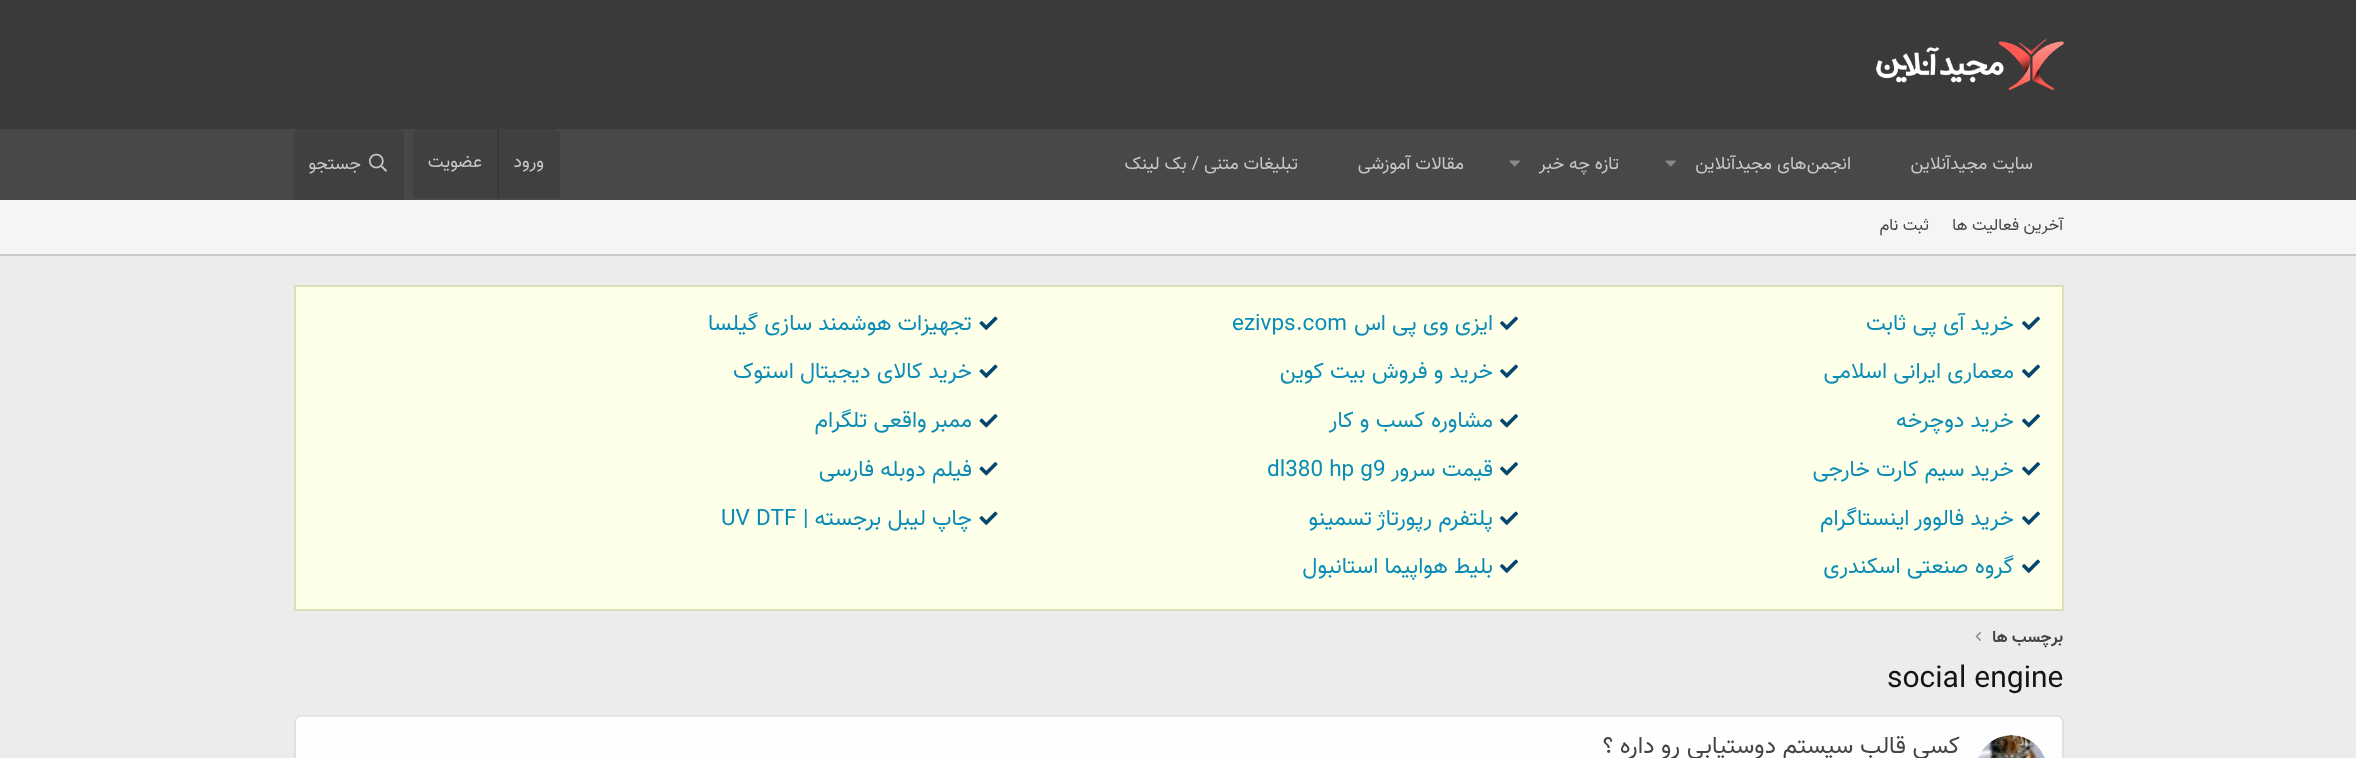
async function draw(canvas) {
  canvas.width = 2356;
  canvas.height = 758;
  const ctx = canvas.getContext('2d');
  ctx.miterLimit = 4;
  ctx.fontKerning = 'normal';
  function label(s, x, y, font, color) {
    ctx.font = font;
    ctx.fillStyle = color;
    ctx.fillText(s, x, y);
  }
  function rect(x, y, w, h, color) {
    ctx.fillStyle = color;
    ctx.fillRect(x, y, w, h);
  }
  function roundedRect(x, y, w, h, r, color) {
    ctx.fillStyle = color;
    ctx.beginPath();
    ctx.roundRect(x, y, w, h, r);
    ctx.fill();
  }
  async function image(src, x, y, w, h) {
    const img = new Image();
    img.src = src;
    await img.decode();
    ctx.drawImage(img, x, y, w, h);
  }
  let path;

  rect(0, 0, 2356, 758, '#ececec');
  rect(0, 0, 2356, 129, '#3a3a3a');
  await image('assets/img1.png', 1876, 39, 188, 51);
  rect(0, 129, 2356, 71, '#484848');
  ctx.direction = 'rtl';
  label('سایت مجیدآنلاین', 2033, 169, '18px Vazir', '#c8c8c8');
  label('انجمن‌های مجیدآنلاین', 1851, 169, '18px Vazir', '#c8c8c8');
  await image('assets/img2.png', 1665, 160, 11, 7);
  label('تازه چه خبر', 1619, 169, '18px Vazir', '#c8c8c8');
  await image('assets/img2.png', 1509, 160, 11, 7);
  label('مقالات آموزشی', 1464, 169, '18px Vazir', '#c8c8c8');
  label('تبلیغات متنی / بک لینک', 1298, 169, '18px Vazir', '#c8c8c8');
  ctx.fillStyle = '#404040';
  ctx.beginPath();
  ctx.roundRect(413, 129, 147, 69, [6, 6, 0, 0]);
  ctx.fill();
  label('ورود', 544, 167, '18px Vazir', '#c8c8c8');
  rect(497, 129, 2, 69, '#393939');
  label('عضویت', 482, 167, '18px Vazir', '#c8c8c8');
  ctx.fillStyle = '#404040';
  ctx.beginPath();
  ctx.roundRect(294, 129, 110, 71, [6, 6, 0, 0]);
  ctx.fill();
  await image('assets/img3.png', 369, 153, 18, 19);
  label('جستجو', 361, 169, '18px Vazir', '#c8c8c8');
  rect(0, 200, 2356, 54, '#f5f5f5');
  rect(0, 254, 2356, 2, '#cbcbcb');
  label('آخرین فعالیت ها', 2063, 230, '16.5px Vazir', '#444');
  label('ثبت نام', 1929, 230, '16.5px Vazir', '#444');
  ctx.fillStyle = '#feffe8';
  ctx.beginPath();
  ctx.rect(295, 286, 1768, 324);
  ctx.fill();
  ctx.strokeStyle = '#dcdeb5';
  ctx.lineWidth = 2;
  ctx.stroke();
  await image('assets/img4.png', 2022, 316, 18, 14);
  label('خرید آی پی ثابت', 2014, 330, '22.5px Vazir', '#0b8cb7');
  await image('assets/img4.png', 1500, 316, 18, 14);
  label('ایزی وی پی اس', 1493, 330, '22.5px Vazir', '#0b8cb7');
  ctx.direction = 'ltr';
  label('ezivps.com', 1232, 330, '22.5px Vazir', '#0b8cb7');
  await image('assets/img5.png', 979, 316, 19, 14);
  ctx.direction = 'rtl';
  label('تجهیزات هوشمند سازی گیلسا', 972, 330, '22.5px Vazir', '#0b8cb7');
  await image('assets/img4.png', 2022, 364, 18, 14);
  label('معماری ایرانی اسلامی', 2014, 378, '22.5px Vazir', '#0b8cb7');
  await image('assets/img4.png', 1500, 364, 18, 14);
  label('خرید و فروش بیت کوین', 1493, 378, '22.5px Vazir', '#0b8cb7');
  await image('assets/img5.png', 979, 364, 19, 14);
  label('خرید کالای دیجیتال استوک', 972, 378, '22.5px Vazir', '#0b8cb7');
  await image('assets/img6.png', 2022, 414, 18, 14);
  label('خرید دوچرخه', 2014, 427, '22.5px Vazir', '#0b8cb7');
  await image('assets/img6.png', 1500, 414, 18, 14);
  label('مشاوره کسب و کار', 1493, 427, '22.5px Vazir', '#0b8cb7');
  await image('assets/img7.png', 979, 414, 19, 14);
  label('ممبر واقعی تلگرام', 972, 427, '22.5px Vazir', '#0b8cb7');
  await image('assets/img6.png', 2022, 462, 18, 14);
  label('خرید سیم کارت خارجی', 2014, 476, '22.5px Vazir', '#0b8cb7');
  await image('assets/img6.png', 1500, 462, 18, 14);
  label('قیمت سرور', 1493, 476, '22.5px Vazir', '#0b8cb7');
  ctx.direction = 'ltr';
  label('dl380 hp g9', 1267, 476, '22.5px Vazir', '#0b8cb7');
  await image('assets/img7.png', 979, 462, 19, 14);
  ctx.direction = 'rtl';
  label('فیلم دوبله فارسی', 972, 476, '22.5px Vazir', '#0b8cb7');
  await image('assets/img4.png', 2022, 511, 18, 14);
  label('خرید فالوور اینستاگرام', 2014, 525, '22.5px Vazir', '#0b8cb7');
  await image('assets/img4.png', 1500, 511, 18, 14);
  label('پلتفرم رپورتاژ تسمینو', 1493, 525, '22.5px Vazir', '#0b8cb7');
  await image('assets/img5.png', 979, 511, 19, 14);
  label('چاپ لیبل برجسته |', 972, 525, '22.5px Vazir', '#0b8cb7');
  ctx.direction = 'ltr';
  label('UV DTF', 721, 525, '22.5px Vazir', '#0b8cb7');
  await image('assets/img4.png', 2022, 559, 18, 14);
  ctx.direction = 'rtl';
  label('گروه صنعتی اسکندری', 2014, 573, '22.5px Vazir', '#0b8cb7');
  await image('assets/img4.png', 1500, 559, 18, 14);
  label('بلیط هواپیما استانبول', 1493, 573, '22.5px Vazir', '#0b8cb7');
  label('برچسب ها', 2063, 642, 'bold 16.5px Vazir', '#444');
  await image('assets/img8.png', 1975, 631, 6, 10);
  ctx.direction = 'ltr';
  label('social engine', 1887, 687, '30px Vazir', '#141414');
  roundedRect(294, 716, 1770, 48, 6, '#fefefe');
  path = new Path2D('M296.5 718C297.5 717 298.5 716 300 716H2058C2059.5 716 2060.5 717 2061.5 718');
  ctx.strokeStyle = '#dfdfdf';
  ctx.lineWidth = 1.5;
  ctx.stroke(path);
  path = new Path2D('M2061.5 718L2063 721V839L2061.5 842');
  ctx.strokeStyle = '#d8d8d8';
  ctx.stroke(path);
  path = new Path2D('M296.5 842L295 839V721L296.5 718');
  ctx.stroke(path);
  await image('assets/img9.png', 1978, 735, 67, 23);
  ctx.direction = 'rtl';
  label('کسی قالب سیستم دوستیابی رو داره ؟', 1960, 753, '24px Vazir', '#444');
}

draw(document.querySelector('canvas'));
